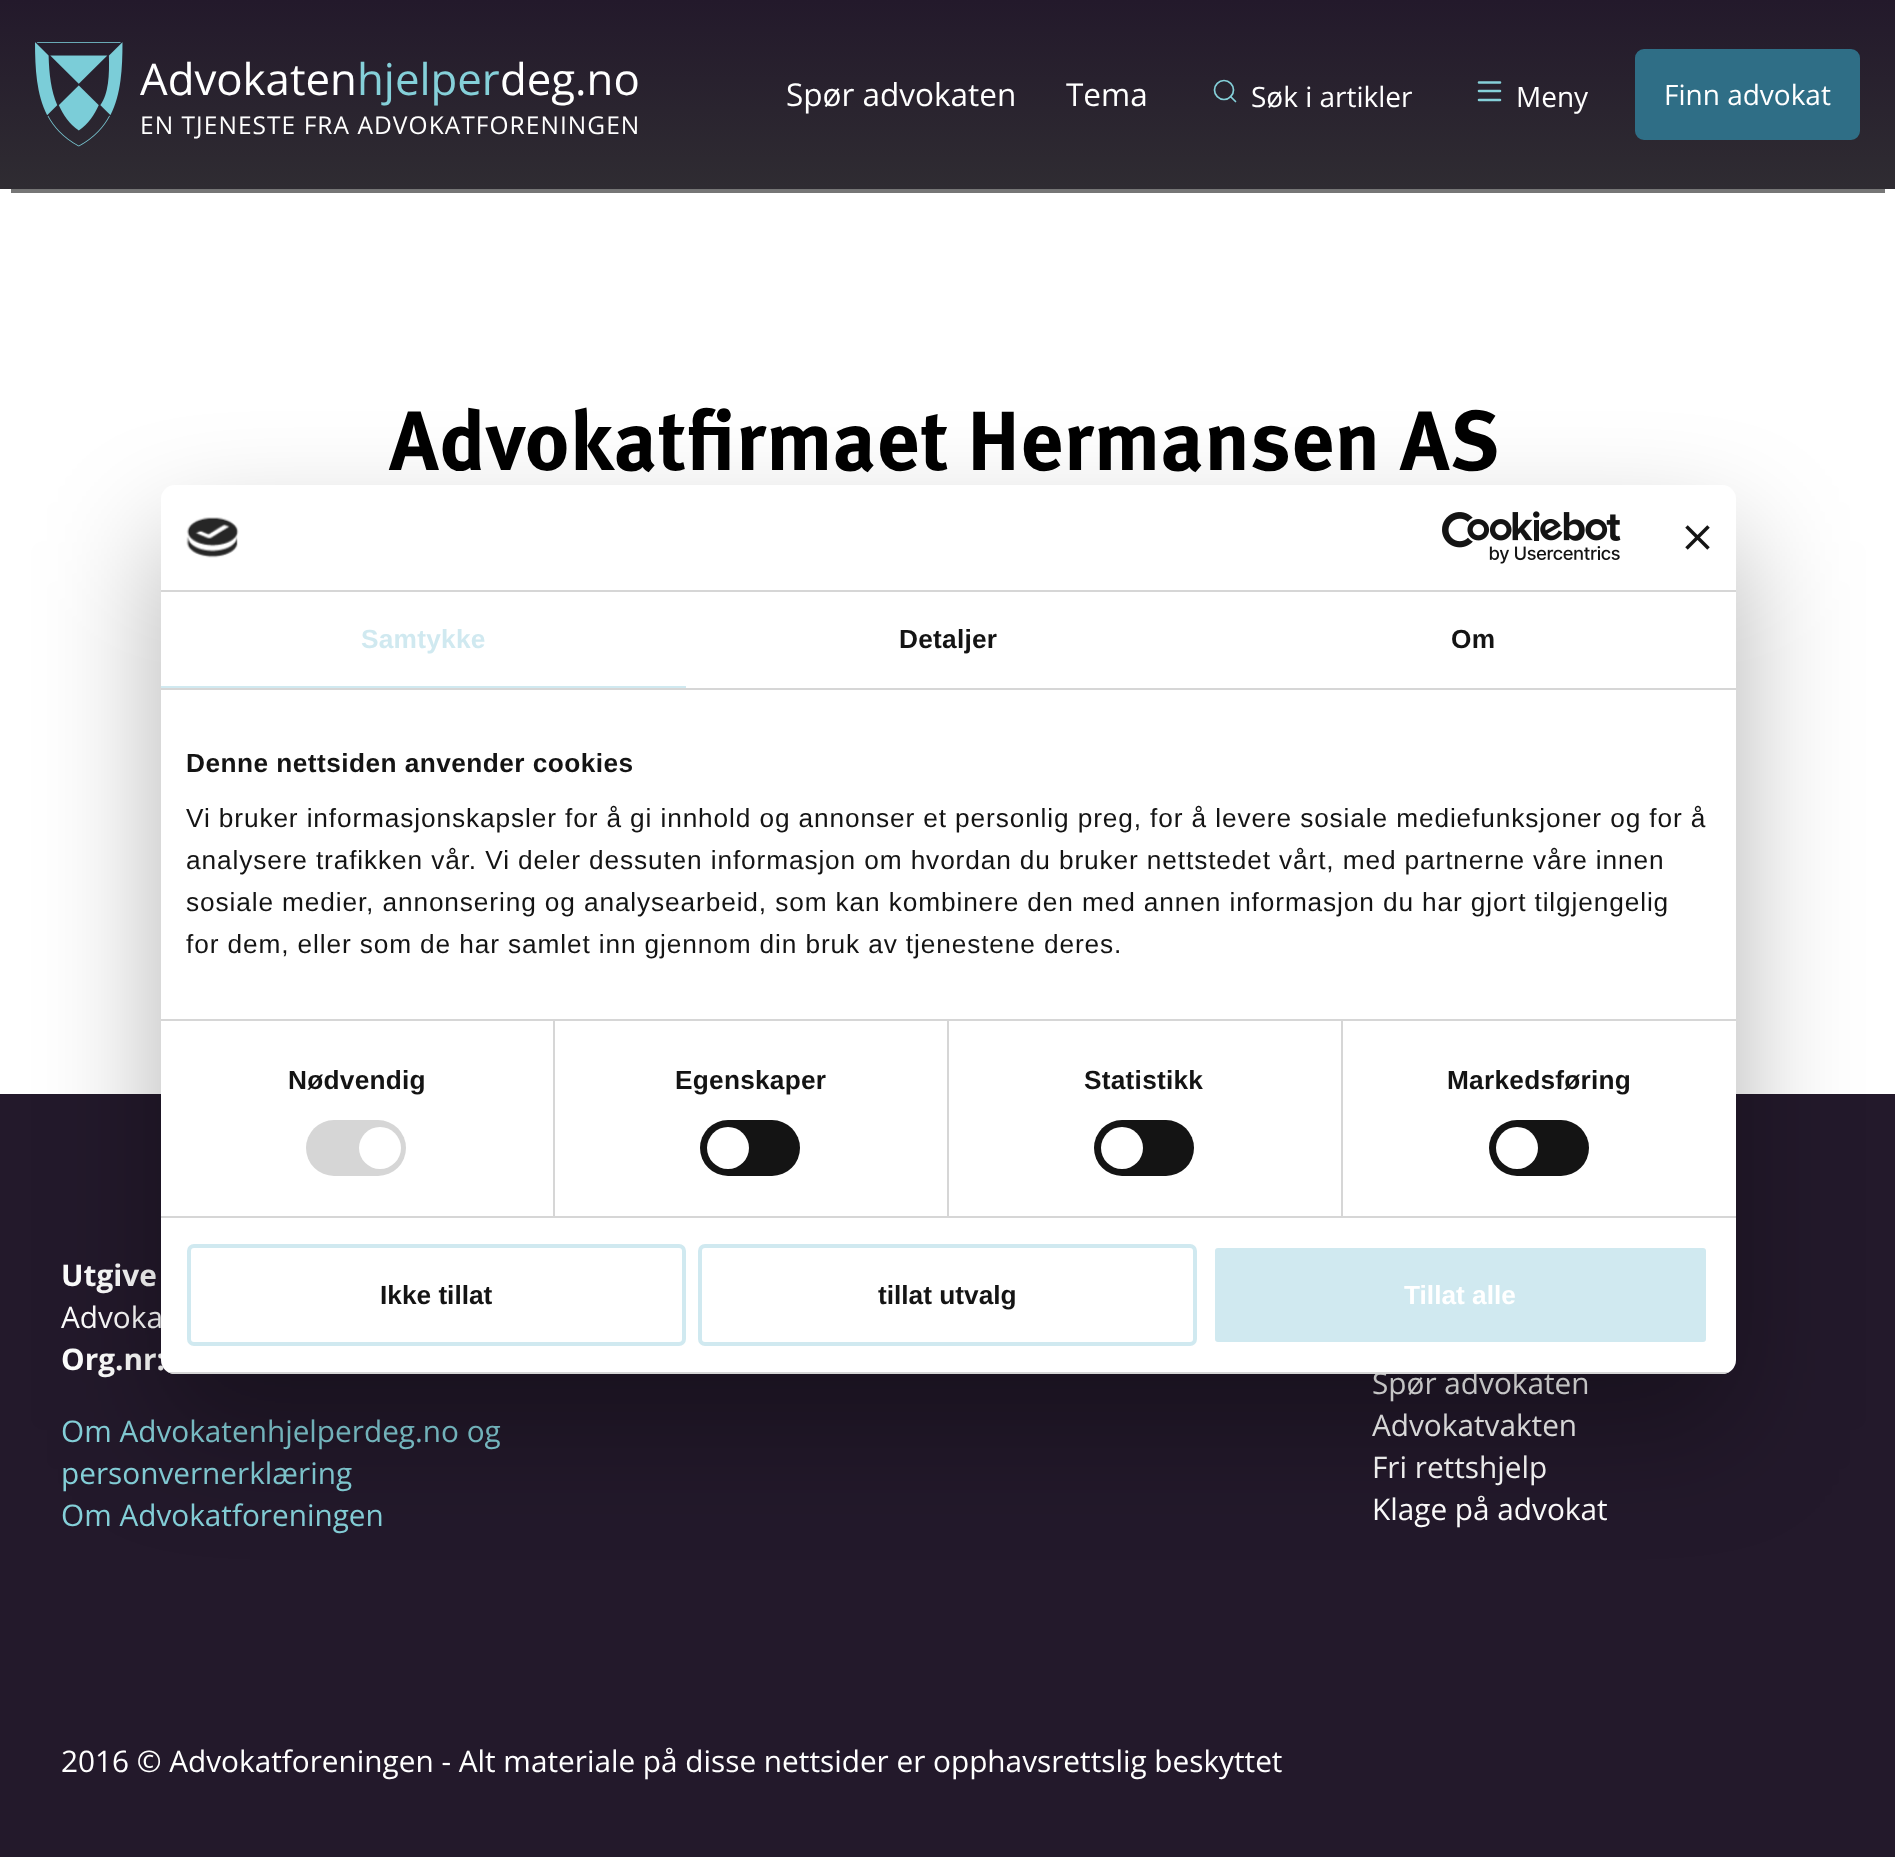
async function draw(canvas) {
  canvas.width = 1895;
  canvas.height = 1857;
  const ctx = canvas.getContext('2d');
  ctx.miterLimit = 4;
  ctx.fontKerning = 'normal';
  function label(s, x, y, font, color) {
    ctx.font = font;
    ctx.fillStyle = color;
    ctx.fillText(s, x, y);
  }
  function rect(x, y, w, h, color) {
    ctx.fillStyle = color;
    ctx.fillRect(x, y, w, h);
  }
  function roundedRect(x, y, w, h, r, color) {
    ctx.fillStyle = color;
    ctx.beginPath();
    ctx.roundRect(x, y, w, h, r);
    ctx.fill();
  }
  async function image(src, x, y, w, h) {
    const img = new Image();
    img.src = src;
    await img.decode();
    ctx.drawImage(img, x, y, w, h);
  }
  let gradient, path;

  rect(0, 0, 1895, 1857, '#fff');
  gradient = ctx.createLinearGradient(948, 0, 948, 189);
  gradient.addColorStop(0, '#23192b');
  gradient.addColorStop(1, '#2f2c32');
  ctx.fillStyle = gradient;
  ctx.fillRect(0, 0, 1895, 189);
  await image('assets/img1.png', 35, 42, 88, 105);
  label('Advokaten', 140, 95, '43.75px Open Sans', '#fff');
  label('hjelper', 357, 95, '43.75px Open Sans', '#85d0d9');
  label('deg.no', 500, 95, '43.75px Open Sans', '#fff');
  ctx.letterSpacing = '1.05px';
  label('EN TJENESTE FRA ADVOKATFORENINGEN', 140, 134, '24.5px Open Sans', '#fff');
  ctx.letterSpacing = '0px';
  label('Spør advokaten', 786, 106, '31.5px Open Sans', '#fff');
  label('Tema', 1066, 106, '31.5px Open Sans', '#fff');
  ctx.beginPath();
  ctx.arc(1224, 90, 9.5, 0, 2 * Math.PI);
  ctx.strokeStyle = '#85d0d9';
  ctx.lineWidth = 1.7;
  ctx.stroke();
  label('Søk i artikler', 1251, 107, '28px Open Sans', '#fff');
  path = new Path2D('M1235.5 101.5L1230.5 96.5');
  ctx.lineCap = 'round';
  ctx.lineJoin = 'round';
  ctx.stroke(path);
  path = new Path2D('M1479 82.5H1500M1479 91H1500M1479 100H1500');
  ctx.lineWidth = 2.6;
  ctx.stroke(path);
  label('Meny', 1516, 107, '28px Open Sans', '#fff');
  ctx.fillStyle = '#2f6e86';
  ctx.beginPath();
  ctx.roundRect(1636, 50, 223, 89, 8);
  ctx.fill();
  ctx.strokeStyle = '#2f6e86';
  ctx.lineWidth = 2;
  ctx.lineJoin = 'miter';
  ctx.stroke();
  label('Finn advokat', 1664, 105, '28px Open Sans', '#fff');
  rect(11, 189, 1874, 4, '#767676');
  label('Advokatfirmaet Hermansen AS', 389, 470, 'bold 84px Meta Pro', '#000');
  rect(0, 1094, 1895, 763, '#23192b');
  label('Utgive', 61, 1286, 'bold 29.75px Open Sans', '#fff');
  label('Advoka', 61, 1328, '29.75px Open Sans', '#fff');
  label('Org.nr:', 61, 1370, 'bold 29.75px Open Sans', '#fff');
  label('Om Advokatenhjelperdeg.no og', 61, 1442, '29.75px Open Sans', '#85d0d9');
  label('personvernerklæring', 61, 1484, '29.75px Open Sans', '#85d0d9');
  label('Om Advokatforeningen', 61, 1526, '29.75px Open Sans', '#85d0d9');
  label('Spør advokaten', 1372, 1394, '29.75px Open Sans', '#fff');
  label('Advokatvakten', 1372, 1436, '29.75px Open Sans', '#fff');
  label('Fri rettshjelp', 1372, 1478, '29.75px Open Sans', '#fff');
  label('Klage på advokat', 1372, 1520, '29.75px Open Sans', '#fff');
  label('2016 © Advokatforeningen - Alt materiale på disse nettsider er opphavsrettslig beskyttet', 61, 1772, '29.75px Open Sans', '#fff');
  ctx.fillStyle = '#0000004d';
  ctx.filter = 'blur(59.5px)';
  ctx.beginPath();
  ctx.roundRect(161, 541, 1575, 889, 14);
  ctx.fill();
  ctx.filter = 'none';
  roundedRect(161, 485, 1575, 889, 14, '#fff');
  rect(161, 590, 1575, 2, '#d6d6d6');
  await image('assets/img2.png', 186, 517, 53, 41);
  await image('assets/img3.png', 1442, 511, 179, 53);
  await image('assets/img4.png', 1685, 525, 25, 25);
  rect(161, 688, 1575, 2, '#d6d6d6');
  rect(161, 686, 525, 2, '#d0e9f0');
  ctx.letterSpacing = '0.25px';
  label('Samtykke', 361, 648, 'bold 26.25px Liberation Sans', '#d0e9f0');
  label('Detaljer', 899, 648, 'bold 26.25px Liberation Sans', '#141414');
  label('Om', 1451, 648, 'bold 26.25px Liberation Sans', '#141414');
  rect(553, 1020, 2, 196, '#d6d6d6');
  rect(947, 1020, 2, 196, '#d6d6d6');
  rect(1341, 1020, 2, 196, '#d6d6d6');
  rect(161, 1019, 1575, 2, '#d6d6d6');
  ctx.letterSpacing = '0.45px';
  label('Denne nettsiden anvender cookies', 186, 772, 'bold 26.25px Liberation Sans', '#141414');
  ctx.letterSpacing = '0.88px';
  label('Vi bruker informasjonskapsler for å gi innhold og annonser et personlig preg, for å levere sosiale mediefunksjoner og for å', 186, 827, '26.25px Liberation Sans', '#141414');
  label('analysere trafikken vår. Vi deler dessuten informasjon om hvordan du bruker nettstedet vårt, med partnerne våre innen', 186, 869, '26.25px Liberation Sans', '#141414');
  label('sosiale medier, annonsering og analysearbeid, som kan kombinere den med annen informasjon du har gjort tilgjengelig', 186, 911, '26.25px Liberation Sans', '#141414');
  label('for dem, eller som de har samlet inn gjennom din bruk av tjenestene deres.', 186, 953, '26.25px Liberation Sans', '#141414');
  rect(161, 1216, 1575, 2, '#d6d6d6');
  ctx.letterSpacing = '0.25px';
  label('Nødvendig', 288, 1089, 'bold 26.25px Liberation Sans', '#141414');
  roundedRect(306, 1120, 100, 56, 28, '#d6d6d6');
  ctx.fillStyle = '#fff';
  ctx.beginPath();
  ctx.arc(380, 1148, 21, 0, 2 * Math.PI);
  ctx.fill();
  label('Egenskaper', 675, 1089, 'bold 26.25px Liberation Sans', '#141414');
  roundedRect(700, 1120, 100, 56, 28, '#141414');
  ctx.fillStyle = '#fff';
  ctx.beginPath();
  ctx.arc(728, 1148, 21, 0, 2 * Math.PI);
  ctx.fill();
  label('Statistikk', 1084, 1089, 'bold 26.25px Liberation Sans', '#141414');
  roundedRect(1094, 1120, 100, 56, 28, '#141414');
  ctx.fillStyle = '#fff';
  ctx.beginPath();
  ctx.arc(1122, 1148, 21, 0, 2 * Math.PI);
  ctx.fill();
  label('Markedsføring', 1447, 1089, 'bold 26.25px Liberation Sans', '#141414');
  roundedRect(1489, 1120, 100, 56, 28, '#141414');
  ctx.fillStyle = '#fff';
  ctx.beginPath();
  ctx.arc(1517, 1148, 21, 0, 2 * Math.PI);
  ctx.fill();
  ctx.save();
  ctx.beginPath();
  ctx.roundRect(161, 485, 1575, 889, 14);
  ctx.clip();
  rect(161, 1372, 1575, 2, '#d6d6d6');
  ctx.restore();
  ctx.beginPath();
  ctx.roundRect(189, 1246, 495, 98, 5);
  ctx.strokeStyle = '#d0e9f0';
  ctx.lineWidth = 4;
  ctx.stroke();
  ctx.letterSpacing = '0px';
  label('Ikke tillat', 380, 1304, 'bold 26.25px Liberation Sans', '#141414');
  ctx.beginPath();
  ctx.roundRect(700, 1246, 495, 98, 5);
  ctx.stroke();
  label('tillat utvalg', 878, 1304, 'bold 26.25px Liberation Sans', '#141414');
  ctx.fillStyle = '#d0e9f0';
  ctx.beginPath();
  ctx.roundRect(1213, 1246, 495, 98, 5);
  ctx.fill();
  ctx.strokeStyle = '#fff';
  ctx.stroke();
  label('Tillat alle', 1404, 1304, 'bold 26.25px Liberation Sans', '#fff');
}

draw(document.querySelector('canvas'));
